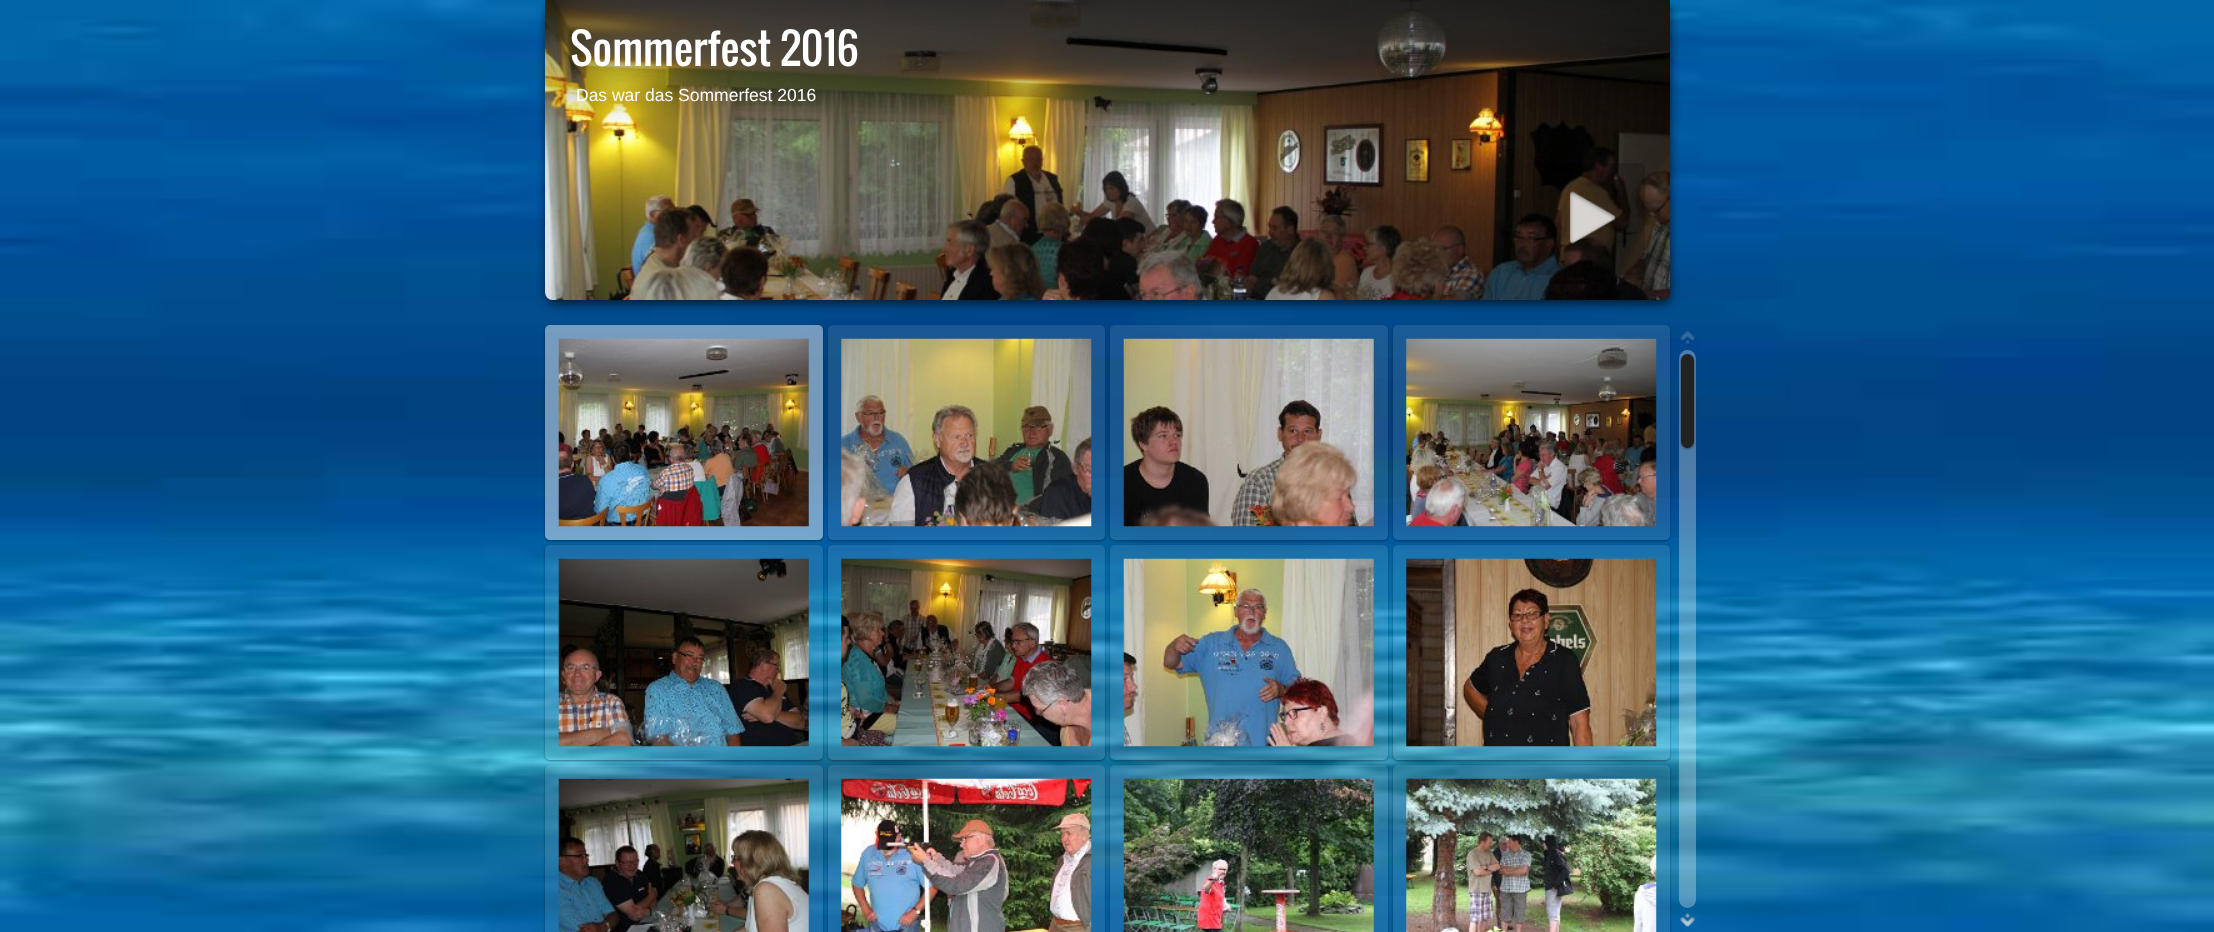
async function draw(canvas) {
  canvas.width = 2214;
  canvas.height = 932;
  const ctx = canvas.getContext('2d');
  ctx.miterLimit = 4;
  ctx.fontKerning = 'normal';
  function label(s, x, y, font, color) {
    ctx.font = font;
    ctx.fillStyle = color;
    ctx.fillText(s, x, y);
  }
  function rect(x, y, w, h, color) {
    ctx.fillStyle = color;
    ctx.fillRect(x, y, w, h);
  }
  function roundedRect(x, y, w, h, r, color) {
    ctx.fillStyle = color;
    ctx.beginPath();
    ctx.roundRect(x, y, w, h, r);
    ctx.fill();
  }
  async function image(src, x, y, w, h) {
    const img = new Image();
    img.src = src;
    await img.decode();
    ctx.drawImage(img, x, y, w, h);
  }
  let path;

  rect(0, 0, 2214, 932, '#fff');
  await image('assets/img1.png', 0, 0, 2214, 932);
  ctx.fillStyle = '#00000099';
  ctx.filter = 'blur(5px)';
  ctx.beginPath();
  ctx.roundRect(546, 4, 1125, 300, 8);
  ctx.fill();
  ctx.filter = 'none';
  await image('assets/img2.png', 545, 0, 1125, 300);
  label('Sommerfest 2016', 570, 66, '42px Oswald', '#fff');
  label('Das war das Sommerfest 2016', 576, 101, '17.5px Liberation Sans', '#fff');
  roundedRect(1533, 163, 112, 112, 5, '#00000033');
  await image('assets/img3.png', 1569, 191, 47, 53);
  ctx.save();
  path = new Path2D('M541 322H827V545H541ZM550 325H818C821 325 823 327 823 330V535C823 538 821 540 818 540H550C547 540 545 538 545 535V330C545 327 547 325 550 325Z');
  ctx.clip(path, 'evenodd');
  ctx.fillStyle = '#00000066';
  ctx.filter = 'blur(1px)';
  ctx.beginPath();
  ctx.roundRect(545, 326, 278, 215, 5);
  ctx.fill();
  ctx.filter = 'none';
  ctx.restore();
  roundedRect(545, 325, 278, 215, 5, '#ffffff1a');
  roundedRect(545, 325, 278, 215, 5, '#ffffff66');
  await image('assets/img4.png', 558, 338, 251, 189);
  ctx.save();
  path = new Path2D('M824 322H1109V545H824ZM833 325H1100C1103 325 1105 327 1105 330V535C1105 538 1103 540 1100 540H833C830 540 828 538 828 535V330C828 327 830 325 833 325Z');
  ctx.clip(path, 'evenodd');
  ctx.fillStyle = '#00000066';
  ctx.filter = 'blur(1px)';
  ctx.beginPath();
  ctx.roundRect(828, 326, 277, 215, 5);
  ctx.fill();
  ctx.filter = 'none';
  ctx.restore();
  roundedRect(828, 325, 277, 215, 5, '#ffffff1a');
  await image('assets/img5.png', 841, 338, 251, 189);
  ctx.save();
  path = new Path2D('M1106 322H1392V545H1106ZM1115 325H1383C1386 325 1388 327 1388 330V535C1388 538 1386 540 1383 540H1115C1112 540 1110 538 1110 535V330C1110 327 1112 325 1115 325Z');
  ctx.clip(path, 'evenodd');
  ctx.fillStyle = '#00000066';
  ctx.filter = 'blur(1px)';
  ctx.beginPath();
  ctx.roundRect(1110, 326, 278, 215, 5);
  ctx.fill();
  ctx.filter = 'none';
  ctx.restore();
  roundedRect(1110, 325, 278, 215, 5, '#ffffff1a');
  await image('assets/img6.png', 1123, 338, 251, 189);
  ctx.save();
  path = new Path2D('M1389 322H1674V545H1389ZM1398 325H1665C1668 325 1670 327 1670 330V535C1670 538 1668 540 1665 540H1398C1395 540 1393 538 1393 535V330C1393 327 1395 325 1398 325Z');
  ctx.clip(path, 'evenodd');
  ctx.fillStyle = '#00000066';
  ctx.filter = 'blur(1px)';
  ctx.beginPath();
  ctx.roundRect(1393, 326, 277, 215, 5);
  ctx.fill();
  ctx.filter = 'none';
  ctx.restore();
  roundedRect(1393, 325, 277, 215, 5, '#ffffff1a');
  await image('assets/img7.png', 1406, 338, 251, 189);
  ctx.save();
  path = new Path2D('M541 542H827V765H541ZM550 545H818C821 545 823 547 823 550V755C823 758 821 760 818 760H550C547 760 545 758 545 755V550C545 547 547 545 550 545Z');
  ctx.clip(path, 'evenodd');
  ctx.fillStyle = '#00000066';
  ctx.filter = 'blur(1px)';
  ctx.beginPath();
  ctx.roundRect(545, 546, 278, 215, 5);
  ctx.fill();
  ctx.filter = 'none';
  ctx.restore();
  roundedRect(545, 545, 278, 215, 5, '#ffffff1a');
  await image('assets/img8.png', 558, 558, 251, 189);
  ctx.save();
  path = new Path2D('M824 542H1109V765H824ZM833 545H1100C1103 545 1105 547 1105 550V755C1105 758 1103 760 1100 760H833C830 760 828 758 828 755V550C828 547 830 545 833 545Z');
  ctx.clip(path, 'evenodd');
  ctx.fillStyle = '#00000066';
  ctx.filter = 'blur(1px)';
  ctx.beginPath();
  ctx.roundRect(828, 546, 277, 215, 5);
  ctx.fill();
  ctx.filter = 'none';
  ctx.restore();
  roundedRect(828, 545, 277, 215, 5, '#ffffff1a');
  await image('assets/img9.png', 841, 558, 251, 189);
  ctx.save();
  path = new Path2D('M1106 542H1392V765H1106ZM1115 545H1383C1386 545 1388 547 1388 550V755C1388 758 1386 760 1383 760H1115C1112 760 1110 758 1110 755V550C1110 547 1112 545 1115 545Z');
  ctx.clip(path, 'evenodd');
  ctx.fillStyle = '#00000066';
  ctx.filter = 'blur(1px)';
  ctx.beginPath();
  ctx.roundRect(1110, 546, 278, 215, 5);
  ctx.fill();
  ctx.filter = 'none';
  ctx.restore();
  roundedRect(1110, 545, 278, 215, 5, '#ffffff1a');
  await image('assets/img10.png', 1123, 558, 251, 189);
  ctx.save();
  path = new Path2D('M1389 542H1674V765H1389ZM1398 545H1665C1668 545 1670 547 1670 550V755C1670 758 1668 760 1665 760H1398C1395 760 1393 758 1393 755V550C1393 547 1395 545 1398 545Z');
  ctx.clip(path, 'evenodd');
  ctx.fillStyle = '#00000066';
  ctx.filter = 'blur(1px)';
  ctx.beginPath();
  ctx.roundRect(1393, 546, 277, 215, 5);
  ctx.fill();
  ctx.filter = 'none';
  ctx.restore();
  roundedRect(1393, 545, 277, 215, 5, '#ffffff1a');
  await image('assets/img11.png', 1406, 558, 251, 189);
  ctx.save();
  path = new Path2D('M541 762H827V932H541ZM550 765H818C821 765 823 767 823 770V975C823 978 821 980 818 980H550C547 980 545 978 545 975V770C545 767 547 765 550 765Z');
  ctx.clip(path, 'evenodd');
  ctx.fillStyle = '#00000066';
  ctx.filter = 'blur(1px)';
  ctx.beginPath();
  ctx.roundRect(545, 766, 278, 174, 5);
  ctx.fill();
  ctx.filter = 'none';
  ctx.restore();
  path = new Path2D('M550 765H818C821 765 823 767 823 770V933H545V770C545 767 547 765 550 765Z');
  ctx.fill(path);
  await image('assets/img12.png', 558, 778, 251, 154);
  ctx.save();
  path = new Path2D('M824 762H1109V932H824ZM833 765H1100C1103 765 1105 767 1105 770V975C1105 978 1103 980 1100 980H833C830 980 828 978 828 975V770C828 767 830 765 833 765Z');
  ctx.clip(path, 'evenodd');
  ctx.fillStyle = '#00000066';
  ctx.filter = 'blur(1px)';
  ctx.beginPath();
  ctx.roundRect(828, 766, 277, 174, 5);
  ctx.fill();
  ctx.filter = 'none';
  ctx.restore();
  path = new Path2D('M833 765H1100C1103 765 1105 767 1105 770V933H828V770C828 767 830 765 833 765Z');
  ctx.fill(path);
  await image('assets/img13.png', 841, 778, 251, 154);
  ctx.save();
  path = new Path2D('M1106 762H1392V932H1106ZM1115 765H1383C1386 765 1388 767 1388 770V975C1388 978 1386 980 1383 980H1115C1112 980 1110 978 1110 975V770C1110 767 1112 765 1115 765Z');
  ctx.clip(path, 'evenodd');
  ctx.fillStyle = '#00000066';
  ctx.filter = 'blur(1px)';
  ctx.beginPath();
  ctx.roundRect(1110, 766, 278, 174, 5);
  ctx.fill();
  ctx.filter = 'none';
  ctx.restore();
  path = new Path2D('M1115 765H1383C1386 765 1388 767 1388 770V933H1110V770C1110 767 1112 765 1115 765Z');
  ctx.fill(path);
  await image('assets/img14.png', 1123, 778, 251, 154);
  ctx.save();
  path = new Path2D('M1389 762H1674V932H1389ZM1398 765H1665C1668 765 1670 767 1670 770V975C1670 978 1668 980 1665 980H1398C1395 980 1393 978 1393 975V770C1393 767 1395 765 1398 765Z');
  ctx.clip(path, 'evenodd');
  ctx.fillStyle = '#00000066';
  ctx.filter = 'blur(1px)';
  ctx.beginPath();
  ctx.roundRect(1393, 766, 277, 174, 5);
  ctx.fill();
  ctx.filter = 'none';
  ctx.restore();
  path = new Path2D('M1398 765H1665C1668 765 1670 767 1670 770V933H1393V770C1393 767 1395 765 1398 765Z');
  ctx.fill(path);
  await image('assets/img15.png', 1406, 778, 251, 154);
  await image('assets/img16.png', 1680, 331, 15, 13);
  roundedRect(1679, 350, 17, 558, 8.5, '#ffffff4d');
  ctx.fillStyle = '#00000066';
  ctx.filter = 'blur(1px)';
  ctx.beginPath();
  ctx.roundRect(1681, 355, 13, 94, 6.5);
  ctx.fill();
  ctx.filter = 'none';
  roundedRect(1681, 354, 13, 94, 6.5, '#222');
  await image('assets/img17.png', 1680, 913, 16, 14);
}

draw(document.querySelector('canvas'));
